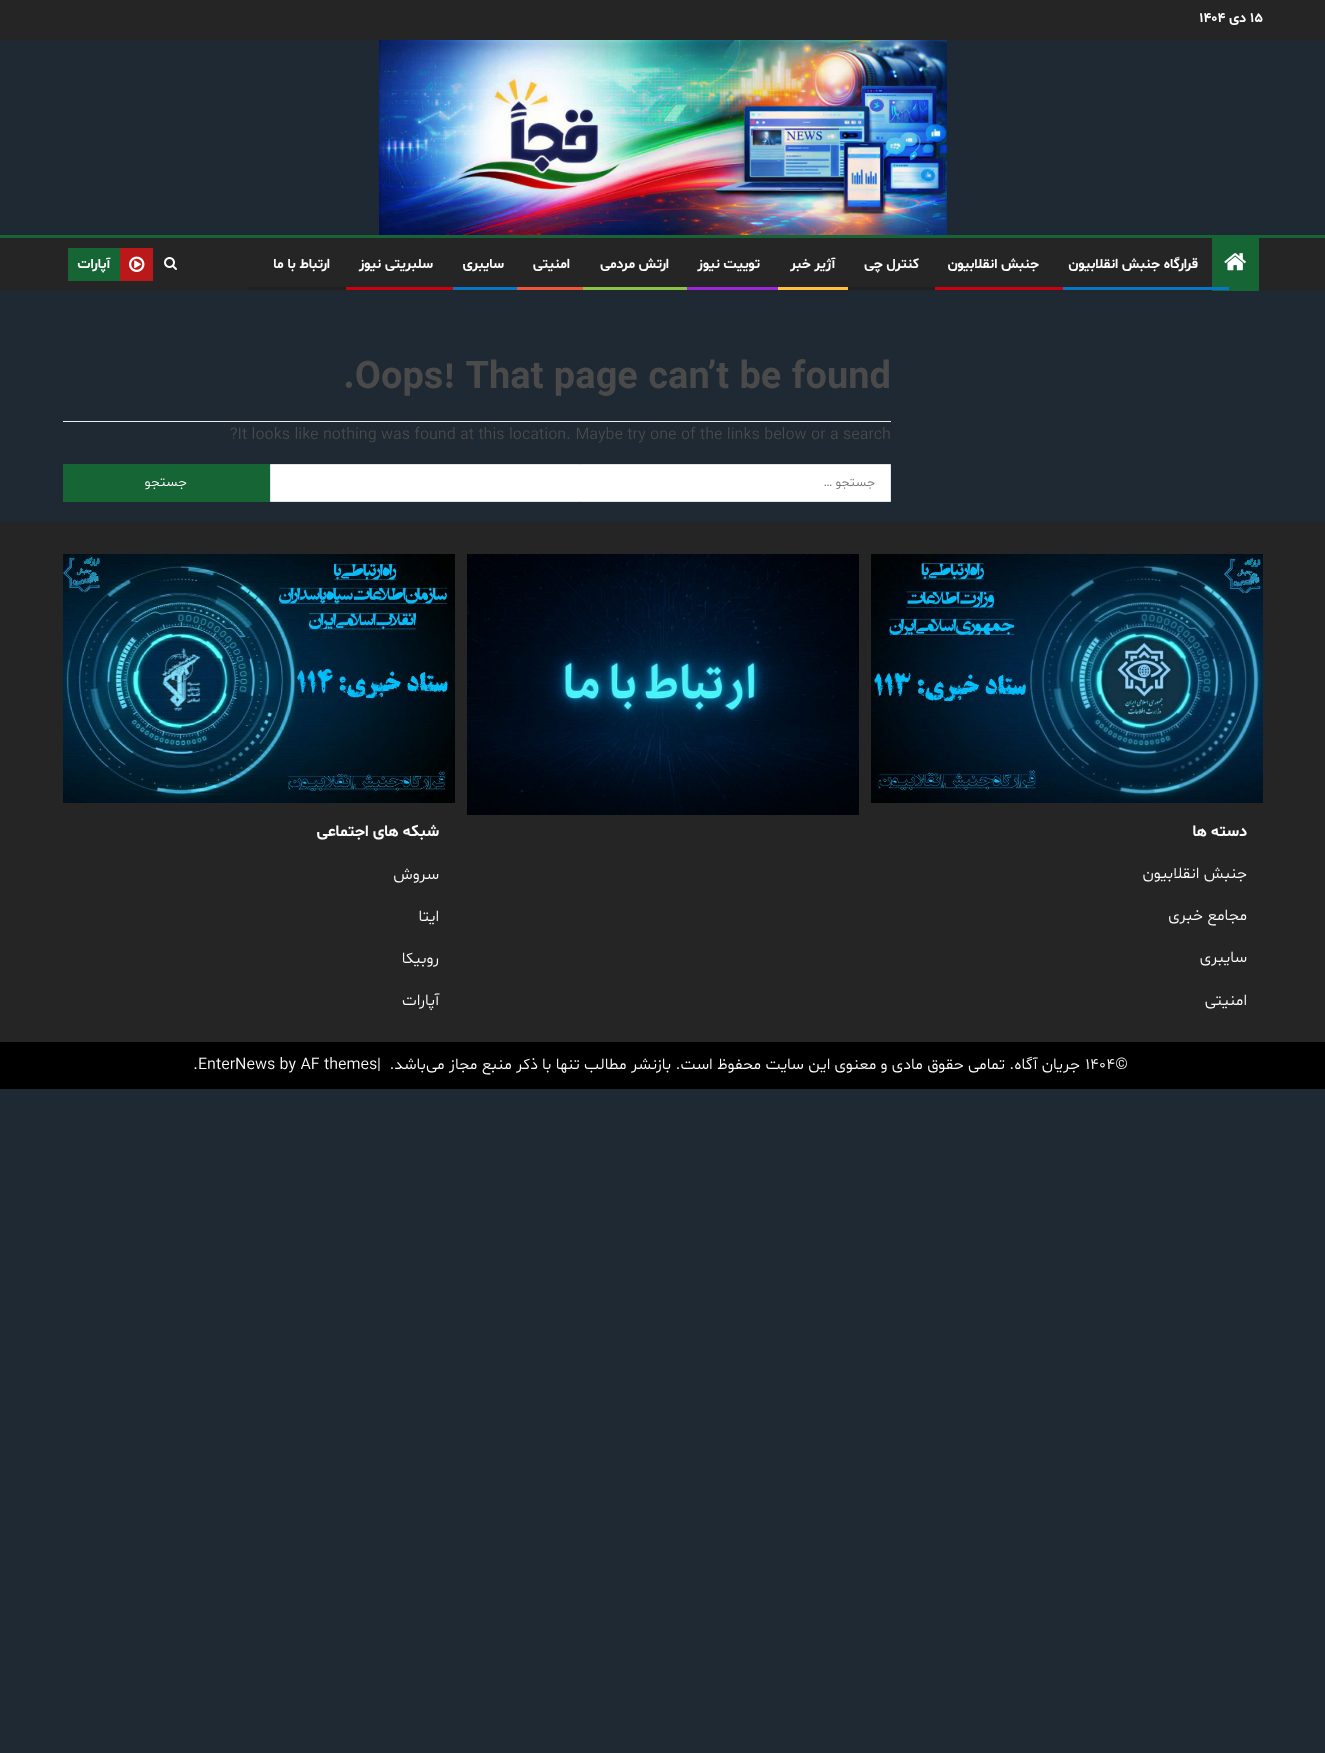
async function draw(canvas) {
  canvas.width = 1325;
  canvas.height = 1753;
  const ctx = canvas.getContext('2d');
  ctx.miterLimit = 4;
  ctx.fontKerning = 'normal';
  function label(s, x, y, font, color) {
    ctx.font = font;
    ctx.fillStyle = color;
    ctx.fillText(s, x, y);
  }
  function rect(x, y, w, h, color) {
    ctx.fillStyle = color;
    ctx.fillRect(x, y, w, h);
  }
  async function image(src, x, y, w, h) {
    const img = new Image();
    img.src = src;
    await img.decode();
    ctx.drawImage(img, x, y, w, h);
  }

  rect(0, 0, 1325, 1753, '#1f2933');
  rect(0, 0, 1325, 40, '#252525');
  label('۱۵', 1250, 22, 'bold 14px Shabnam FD', '#fff');
  ctx.direction = 'rtl';
  label('دی', 1246, 22, 'bold 14px Shabnam FD', '#fff');
  ctx.direction = 'ltr';
  label('۱۴۰۴', 1199, 22, 'bold 14px Shabnam FD', '#fff');
  await image('assets/img1.png', 379, 40, 568, 195);
  rect(0, 238, 1325, 53, '#252525');
  rect(0, 235, 1325, 3, '#166534');
  rect(1212, 238, 47, 53, '#166534');
  await image('assets/img2.png', 1224, 253, 22, 18);
  ctx.direction = 'rtl';
  label('قرارگاه جنبش انقلابیون', 1198, 268, 'bold 14px Shabnam FD', '#fff');
  rect(1063, 287, 166, 3, '#0776c6');
  label('جنبش انقلابیون', 1039, 268, 'bold 14px Shabnam FD', '#fff');
  rect(935, 287, 128, 3, '#cc0010');
  label('کنترل چی', 919, 268, 'bold 14px Shabnam FD', '#fff');
  rect(848, 287, 87, 3, '#202020');
  label('آژیر خبر', 835, 268, 'bold 14px Shabnam FD', '#fff');
  rect(778, 287, 70, 3, '#ffbf3f');
  label('توییت نیوز', 760, 268, 'bold 14px Shabnam FD', '#fff');
  rect(687, 287, 91, 3, '#9c27d9');
  label('ارتش مردمی', 669, 268, 'bold 14px Shabnam FD', '#fff');
  rect(575, 287, 112, 3, '#8bc34a');
  label('امنیتی', 570, 268, 'bold 14px Shabnam FD', '#fff');
  rect(509, 287, 74, 3, '#ed553f');
  label('سایبری', 504, 268, 'bold 14px Shabnam FD', '#fff');
  rect(453, 287, 64, 3, '#0776c6');
  label('سلبریتی نیوز', 433, 268, 'bold 14px Shabnam FD', '#fff');
  rect(346, 287, 107, 3, '#cc0010');
  label('ارتباط با ما', 330, 268, 'bold 14px Shabnam FD', '#fff');
  rect(248, 287, 98, 3, '#202020');
  await image('assets/img3.png', 164, 257, 13, 13);
  rect(120, 248, 33, 33, '#bb1919');
  await image('assets/img4.png', 129, 256, 16, 16);
  rect(68, 248, 52, 33, '#166534');
  label('آپارات', 110, 268, 'bold 14px Shabnam FD', '#fff');
  rect(63, 421, 828, 1, '#eee');
  ctx.direction = 'ltr';
  label('.Oops! That page can’t be found', 343, 388, 'bold 38px Shabnam FD', '#4a4a4a');
  label('?It looks like nothing was found at this location. Maybe try one of the links below or a search', 230, 439, '300 16px Shabnam FD', '#4a4a4a');
  ctx.fillStyle = '#fff';
  ctx.beginPath();
  ctx.rect(270.5, 464.5, 620, 37);
  ctx.fill();
  ctx.strokeStyle = '#e4e4e4';
  ctx.stroke();
  ctx.direction = 'rtl';
  label('جستجو …', 875, 486, '300 13px Shabnam FD', '#757575');
  rect(63, 464, 207, 38, '#166534');
  label('جستجو', 187, 486, '300 14px Shabnam FD', '#fff');
  rect(0, 522, 1325, 520, '#252525');
  await image('assets/img5.png', 467, 554, 392, 261);
  await image('assets/img6.png', 871, 554, 392, 249);
  label('دسته ها', 1247, 836, 'bold 16px Shabnam FD', '#fff');
  label('جنبش انقلابیون', 1247, 878, '300 16px Shabnam FD', '#fff');
  label('مجامع خبری', 1247, 920, '300 16px Shabnam FD', '#fff');
  label('سایبری', 1247, 962, '300 16px Shabnam FD', '#fff');
  label('امنیتی', 1247, 1005, '300 16px Shabnam FD', '#fff');
  await image('assets/img7.png', 63, 554, 392, 249);
  label('شبکه های اجتماعی', 439, 836, 'bold 16px Shabnam FD', '#fff');
  label('سروش', 439, 879, '300 16px Shabnam FD', '#fff');
  label('ایتا', 439, 921, '300 16px Shabnam FD', '#fff');
  label('روبیکا', 439, 963, '300 16px Shabnam FD', '#fff');
  label('آپارات', 439, 1005, '300 16px Shabnam FD', '#fff');
  rect(0, 1042, 1325, 47, '#000');
  ctx.direction = 'ltr';
  label('۱۴۰۴©', 1085, 1069, '300 16px Shabnam FD', '#fff');
  ctx.direction = 'rtl';
  label('جریان آگاه. تمامی حقوق مادی و معنوی این سایت محفوظ است. بازنشر مطالب تنها با ذکر منبع مجاز می‌باشد.', 1080, 1069, '300 16px Shabnam FD', '#fff');
  ctx.direction = 'ltr';
  label('|', 377, 1069, '300 16px Shabnam FD', '#fff');
  label('EnterNews by AF themes', 198, 1069, '300 16px Shabnam FD', '#fff');
  label('.', 193, 1069, '300 16px Shabnam FD', '#fff');
}

draw(document.querySelector('canvas'));
